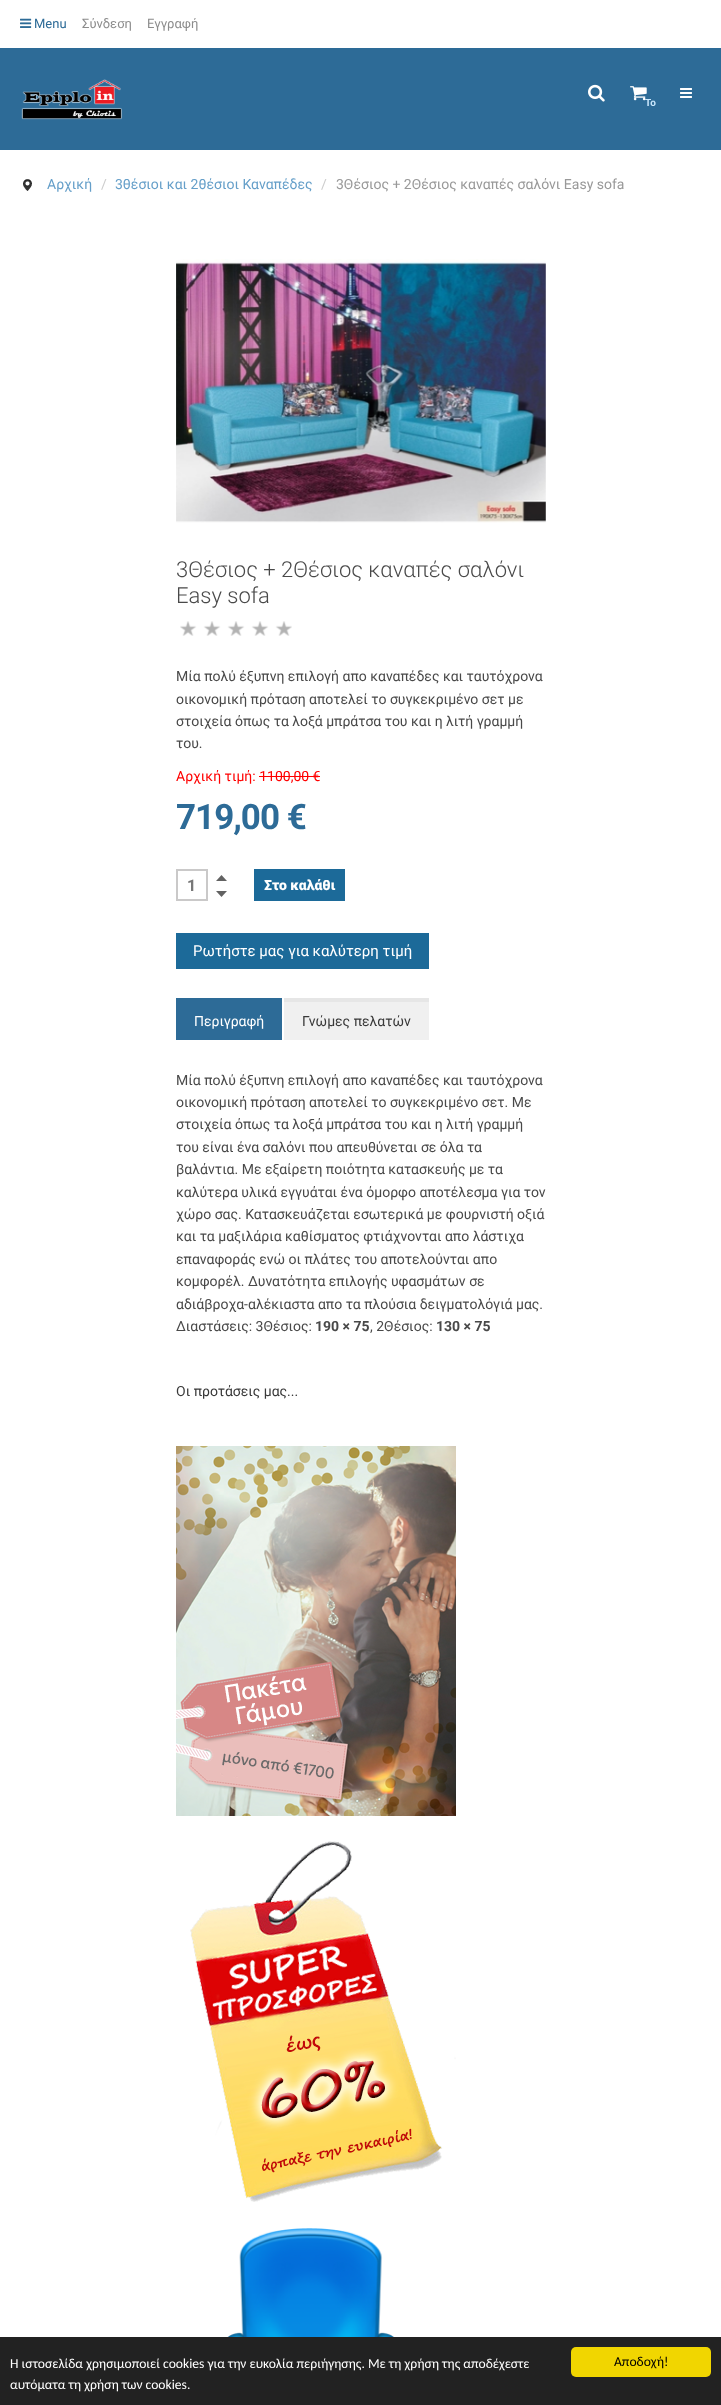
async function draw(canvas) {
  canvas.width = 721;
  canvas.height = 2405;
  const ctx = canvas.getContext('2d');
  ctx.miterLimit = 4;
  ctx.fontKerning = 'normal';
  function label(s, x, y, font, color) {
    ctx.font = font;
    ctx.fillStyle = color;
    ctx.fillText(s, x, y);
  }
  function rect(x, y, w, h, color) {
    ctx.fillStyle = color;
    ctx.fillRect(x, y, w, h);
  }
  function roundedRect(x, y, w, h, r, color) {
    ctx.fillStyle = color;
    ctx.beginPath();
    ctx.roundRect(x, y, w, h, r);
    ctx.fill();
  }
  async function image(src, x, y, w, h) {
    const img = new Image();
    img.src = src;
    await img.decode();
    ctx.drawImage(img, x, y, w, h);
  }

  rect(0, 0, 721, 2405, '#fff');
  await image('assets/img1.png', 20, 18, 12, 10);
  label('Menu', 34, 28, '13px Roboto', '#2d6b97');
  label('Σύνδεση', 82, 28, '13px Roboto', '#8c8c8c');
  label('Εγγραφή', 147, 28, '13px Roboto', '#8c8c8c');
  rect(0, 48, 721, 102, '#2d6b97');
  await image('assets/img2.png', 21, 79, 102, 41);
  await image('assets/img3.png', 680, 88, 12, 10);
  await image('assets/img4.png', 588, 84, 17, 18);
  await image('assets/img5.png', 630, 86, 17, 15);
  label('Το', 645, 106, 'bold 10px Roboto', '#cae7fc');
  await image('assets/img6.png', 23, 179, 9, 12);
  label('Αρχική', 47, 189, '14px Roboto', '#659fc9');
  label('/', 101, 189, '14px Roboto', '#ccc');
  label('3θέσιοι και 2θέσιοι Καναπέδες', 115, 189, '14px Roboto', '#659fc9');
  label('/', 321, 189, '14px Roboto', '#ccc');
  label('3Θέσιος + 2Θέσιος καναπές σαλόνι Easy sofa', 336, 189, '14px Roboto', '#999');
  await image('assets/img7.png', 176, 259, 370, 264);
  label('3Θέσιος + 2Θέσιος καναπές σαλόνι', 176, 577, '300 22px Roboto', '#494949');
  label('Easy sofa', 176, 603, '300 22px Roboto', '#494949');
  await image('assets/img8.png', 180, 621, 112, 15);
  label('Μία πολύ έξυπνη επιλογή απο καναπέδες και ταυτόχρονα', 176, 681, '14px Roboto', '#494949');
  label('οικονομική πρόταση αποτελεί το συγκεκριμένο σετ με', 176, 704, '14px Roboto', '#494949');
  label('στοιχεία όπως τα λοξά μπράτσα του και η λιτή γραμμή', 176, 726, '14px Roboto', '#494949');
  label('του.', 176, 748, '14px Roboto', '#494949');
  label('Αρχική τιμή: 1100,00 €', 176, 781, '14px Roboto', '#f00');
  rect(259, 776, 61, 1, '#f00');
  ctx.letterSpacing = '-1px';
  label('719,00 €', 176, 829, 'bold 35px Roboto', '#2d6b97');
  ctx.beginPath();
  ctx.rect(177, 870, 30, 30);
  ctx.strokeStyle = '#cac9c9';
  ctx.lineWidth = 2;
  ctx.stroke();
  ctx.letterSpacing = '0px';
  label('1', 187, 891, 'bold 16px Roboto', '#777');
  await image('assets/img9.png', 216, 875, 11, 6);
  await image('assets/img10.png', 216, 891, 11, 6);
  rect(254, 869, 91, 32, '#1c6a99');
  label('Στο καλάθι', 264, 890, '900 14px Roboto', '#fff');
  rect(176, 933, 253, 36, '#1c6a99');
  label('Ρωτήστε μας για καλύτερη τιμή', 193, 956, '15px Roboto', '#fff');
  rect(176, 998, 106, 42, '#2d6b97');
  label('Περιγραφή', 194, 1026, '14px Roboto', '#fff');
  rect(284, 1002, 145, 38, '#f0f0f0');
  rect(284, 998, 145, 4, '#e6e6e6');
  label('Γνώμες πελατών', 302, 1026, '14px Roboto', '#393939');
  label('Μία πολύ έξυπνη επιλογή απο καναπέδες και ταυτόχρονα', 176, 1085, '14px Roboto', '#494949');
  label('οικονομική πρόταση αποτελεί το συγκεκριμένο σετ. Με', 176, 1107, '14px Roboto', '#494949');
  label('στοιχεία όπως τα λοξά μπράτσα του και η λιτή γραμμή', 176, 1129, '14px Roboto', '#494949');
  label('του είναι ένα σαλόνι που απευθύνεται σε όλα τα', 176, 1152, '14px Roboto', '#494949');
  label('βαλάντια. Με εξαίρετη ποιότητα κατασκευής με τα', 176, 1174, '14px Roboto', '#494949');
  label('καλύτερα υλικά εγγυάται ένα όμορφο αποτέλεσμα για τον', 176, 1197, '14px Roboto', '#494949');
  label('χώρο σας. Κατασκευάζεται εσωτερικά με φουρνιστή οξιά', 176, 1219, '14px Roboto', '#494949');
  label('και τα μαξιλάρια καθίσματος φτιάχνονται απο λάστιχα', 176, 1241, '14px Roboto', '#494949');
  label('επαναφοράς ενώ οι πλάτες του αποτελούνται απο', 176, 1264, '14px Roboto', '#494949');
  label('κομφορέλ. Δυνατότητα επιλογής υφασμάτων σε', 176, 1286, '14px Roboto', '#494949');
  label('αδιάβροχα-αλέκιαστα απο τα πλούσια δειγματολόγιά μας.', 176, 1309, '14px Roboto', '#494949');
  label('Διαστάσεις: 3Θέσιος:', 176, 1331, '14px Roboto', '#494949');
  label('190 × 75', 315, 1331, 'bold 14px Roboto', '#494949');
  label(', 2Θέσιος:', 370, 1331, '14px Roboto', '#494949');
  label('130 × 75', 436, 1331, 'bold 14px Roboto', '#494949');
  label('Οι προτάσεις μας...', 176, 1396, '14px Roboto', '#393939');
  await image('assets/img11.png', 176, 1446, 280, 370);
  await image('assets/img12.png', 190, 1841, 266, 361);
  await image('assets/img13.png', 186, 2228, 250, 109);
  rect(0, 2337, 721, 68, '#222');
  label('Η ιστοσελίδα χρησιμοποιεί cookies για την ευκολία περιήγησης. Με τη χρήση της αποδέχεστε', 10, 2368, '13.6px Carlito', '#fff');
  label('αυτόματα τη χρήση των cookies.', 10, 2389, '13.6px Carlito', '#fff');
  roundedRect(571, 2347, 140, 30, 5, '#f1d600');
  label('Αποδοχή!', 614, 2366, '13.6px Carlito', '#000');
}

draw(document.querySelector('canvas'));
